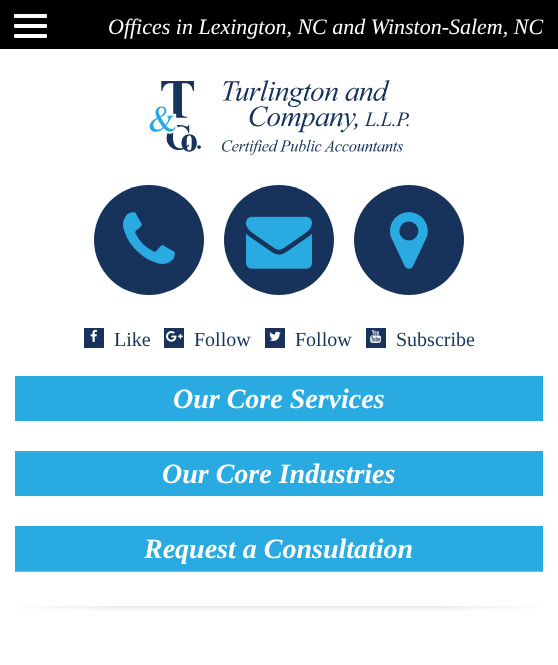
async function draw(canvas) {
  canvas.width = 558;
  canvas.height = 665;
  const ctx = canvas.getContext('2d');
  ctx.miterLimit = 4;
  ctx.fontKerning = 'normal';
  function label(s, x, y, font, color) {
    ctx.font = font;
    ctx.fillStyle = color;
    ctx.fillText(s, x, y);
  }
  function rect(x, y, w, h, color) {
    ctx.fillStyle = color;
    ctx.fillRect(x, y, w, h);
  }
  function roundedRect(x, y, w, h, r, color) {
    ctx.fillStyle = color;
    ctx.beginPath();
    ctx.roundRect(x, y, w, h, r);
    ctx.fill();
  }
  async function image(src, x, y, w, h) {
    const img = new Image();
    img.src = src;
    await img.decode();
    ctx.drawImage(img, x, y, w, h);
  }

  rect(0, 0, 558, 665, '#fff');
  rect(0, 0, 558, 49, '#000');
  roundedRect(14, 14, 33, 4, 1, '#fff');
  roundedRect(14, 24, 33, 4, 1, '#fff');
  roundedRect(14, 34, 33, 4, 1, '#fff');
  label('Offices in Lexington, NC and Winston-Salem, NC', 108, 34, 'italic 22px Liberation Serif', '#fff');
  await image('assets/img1.png', 149, 80, 260, 75);
  ctx.fillStyle = '#17335b';
  ctx.beginPath();
  ctx.arc(149, 240, 55, 0, 2 * Math.PI);
  ctx.fill();
  await image('assets/img2.png', 123, 212, 52, 52);
  ctx.beginPath();
  ctx.arc(279, 240, 55, 0, 2 * Math.PI);
  ctx.fill();
  await image('assets/img3.png', 246, 216, 66, 53);
  ctx.beginPath();
  ctx.arc(409, 240, 55, 0, 2 * Math.PI);
  ctx.fill();
  await image('assets/img4.png', 390, 212, 38, 57);
  rect(84, 328, 20, 20, '#17335b');
  await image('assets/img5.png', 90, 329, 7, 13);
  label('Like', 114, 346, '20px Liberation Serif', '#17335b');
  rect(164, 328, 20, 20, '#17335b');
  await image('assets/img6.png', 166, 331, 17, 11);
  label('Follow', 194, 346, '20px Liberation Serif', '#17335b');
  rect(265, 328, 20, 20, '#17335b');
  await image('assets/img7.png', 269, 331, 12, 10);
  label('Follow', 295, 346, '20px Liberation Serif', '#17335b');
  rect(366, 328, 20, 20, '#17335b');
  await image('assets/img8.png', 370, 329, 11, 14);
  label('Subscribe', 396, 346, '20px Liberation Serif', '#17335b');
  rect(15, 571, 528, 1, '#a2adbd');
  rect(15, 376, 528, 45, '#29abe2');
  label('Our Core Services', 173, 408, 'italic bold 28px Liberation Serif', '#fff');
  rect(15, 451, 528, 45, '#29abe2');
  label('Our Core Industries', 162, 483, 'italic bold 28px Liberation Serif', '#fff');
  rect(15, 526, 528, 45, '#29abe2');
  label('Request a Consultation', 144, 558, 'italic bold 28px Liberation Serif', '#fff');
  await image('assets/img9.png', 20, 606, 518, 5);
}

draw(document.querySelector('canvas'));
